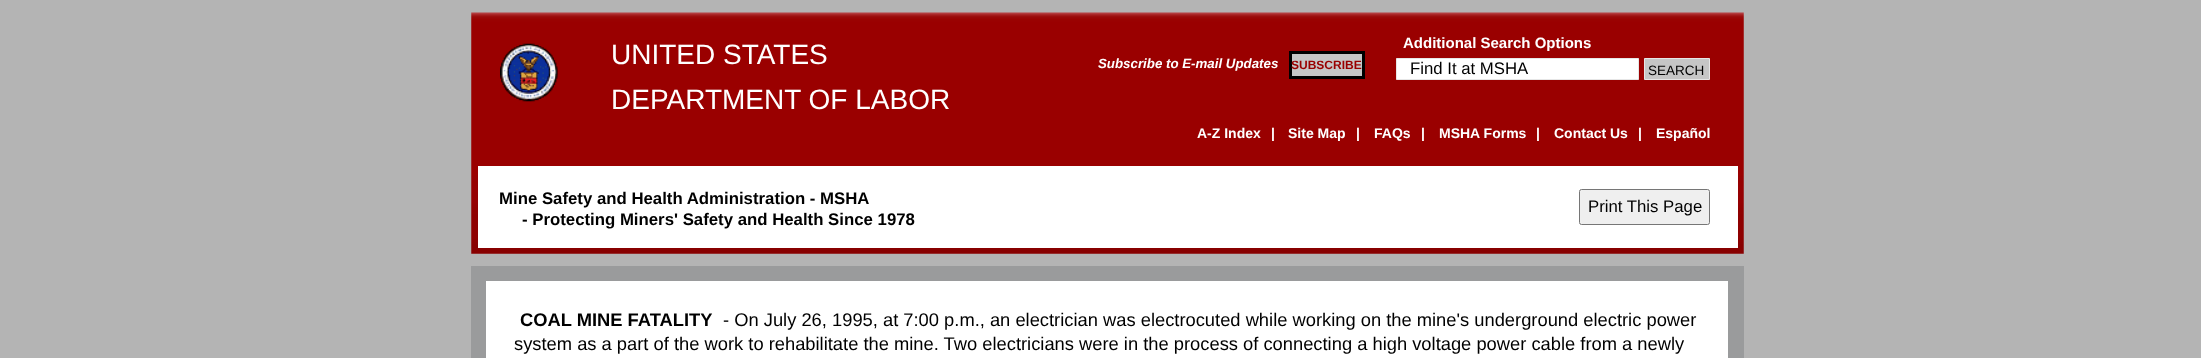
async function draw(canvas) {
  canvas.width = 2201;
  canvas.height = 358;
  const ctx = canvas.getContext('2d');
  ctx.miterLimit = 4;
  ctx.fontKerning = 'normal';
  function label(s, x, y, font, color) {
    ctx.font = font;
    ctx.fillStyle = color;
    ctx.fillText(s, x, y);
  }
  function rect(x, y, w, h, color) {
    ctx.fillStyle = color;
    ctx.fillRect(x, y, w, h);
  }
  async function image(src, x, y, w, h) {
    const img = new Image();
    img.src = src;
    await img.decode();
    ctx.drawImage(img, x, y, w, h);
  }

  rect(0, 0, 2201, 358, '#b4b4b4');
  await image('assets/img1.png', 471, 12, 1273, 242);
  await image('assets/img2.png', 500, 43, 58, 59);
  label('UNITED STATES', 611, 64, '28px Liberation Sans', '#fff');
  label('DEPARTMENT OF LABOR', 611, 109, '28px Liberation Sans', '#fff');
  label('Subscribe to E-mail Updates', 1098, 68, 'italic bold 13.3px Liberation Sans', '#fff');
  ctx.fillStyle = '#c6c6c6';
  ctx.beginPath();
  ctx.rect(1290.5, 52.5, 73, 25);
  ctx.fill();
  ctx.strokeStyle = '#000';
  ctx.lineWidth = 3;
  ctx.stroke();
  label('SUBSCRIBE', 1291, 69, 'bold 12px Liberation Sans', '#900');
  label('Additional Search Options', 1403, 48, 'bold 15px Liberation Sans', '#fff');
  ctx.beginPath();
  ctx.rect(1396.5, 58.5, 242, 21);
  ctx.fill();
  ctx.strokeStyle = '#e6e6e6';
  ctx.lineWidth = 1;
  ctx.stroke();
  label('Find It at MSHA', 1410, 74, '16.75px Liberation Sans', '#000');
  ctx.fillStyle = '#c6c6c6';
  ctx.beginPath();
  ctx.rect(1644.5, 58.5, 65, 21);
  ctx.fill();
  ctx.stroke();
  label('SEARCH', 1648, 75, '13.5px Liberation Sans', '#000');
  label('A-Z Index', 1197, 138, 'bold 14px Liberation Sans', '#fff');
  label('|', 1271, 138, 'bold 14px Liberation Sans', '#fff');
  label('Site Map', 1288, 138, 'bold 14px Liberation Sans', '#fff');
  label('|', 1356, 138, 'bold 14px Liberation Sans', '#fff');
  label('FAQs', 1374, 138, 'bold 14px Liberation Sans', '#fff');
  label('|', 1421, 138, 'bold 14px Liberation Sans', '#fff');
  label('MSHA Forms', 1439, 138, 'bold 14px Liberation Sans', '#fff');
  label('|', 1536, 138, 'bold 14px Liberation Sans', '#fff');
  label('Contact Us', 1554, 138, 'bold 14px Liberation Sans', '#fff');
  label('|', 1638, 138, 'bold 14px Liberation Sans', '#fff');
  label('Español', 1656, 138, 'bold 14px Liberation Sans', '#fff');
  rect(478, 166, 1260, 82, '#fff');
  label('Mine Safety and Health Administration - MSHA', 499, 204, 'bold 16.8px Liberation Sans', '#000');
  label('- Protecting Miners\' Safety and Health Since 1978', 522, 225, 'bold 16.8px Liberation Sans', '#000');
  ctx.fillStyle = '#efefef';
  ctx.beginPath();
  ctx.roundRect(1579.5, 189.5, 130, 35, 2);
  ctx.fill();
  ctx.strokeStyle = '#767676';
  ctx.stroke();
  label('Print This Page', 1588, 212, '16.75px Liberation Sans', '#000');
  rect(471, 266, 1273, 92, '#9a9b9c');
  rect(486, 281, 1242, 77, '#fff');
  label('COAL MINE FATALITY', 520, 326, 'bold 18.33px Liberation Sans', '#000');
  label('- On July 26, 1995, at 7:00 p.m., an electrician was electrocuted while working on the mine\'s underground electric power', 723, 326, '18.33px Liberation Sans', '#000');
  label('system as a part of the work to rehabilitate the mine. Two electricians were in the process of connecting a high voltage power cable from a newly', 514, 350, '18.33px Liberation Sans', '#000');
}

draw(document.querySelector('canvas'));
